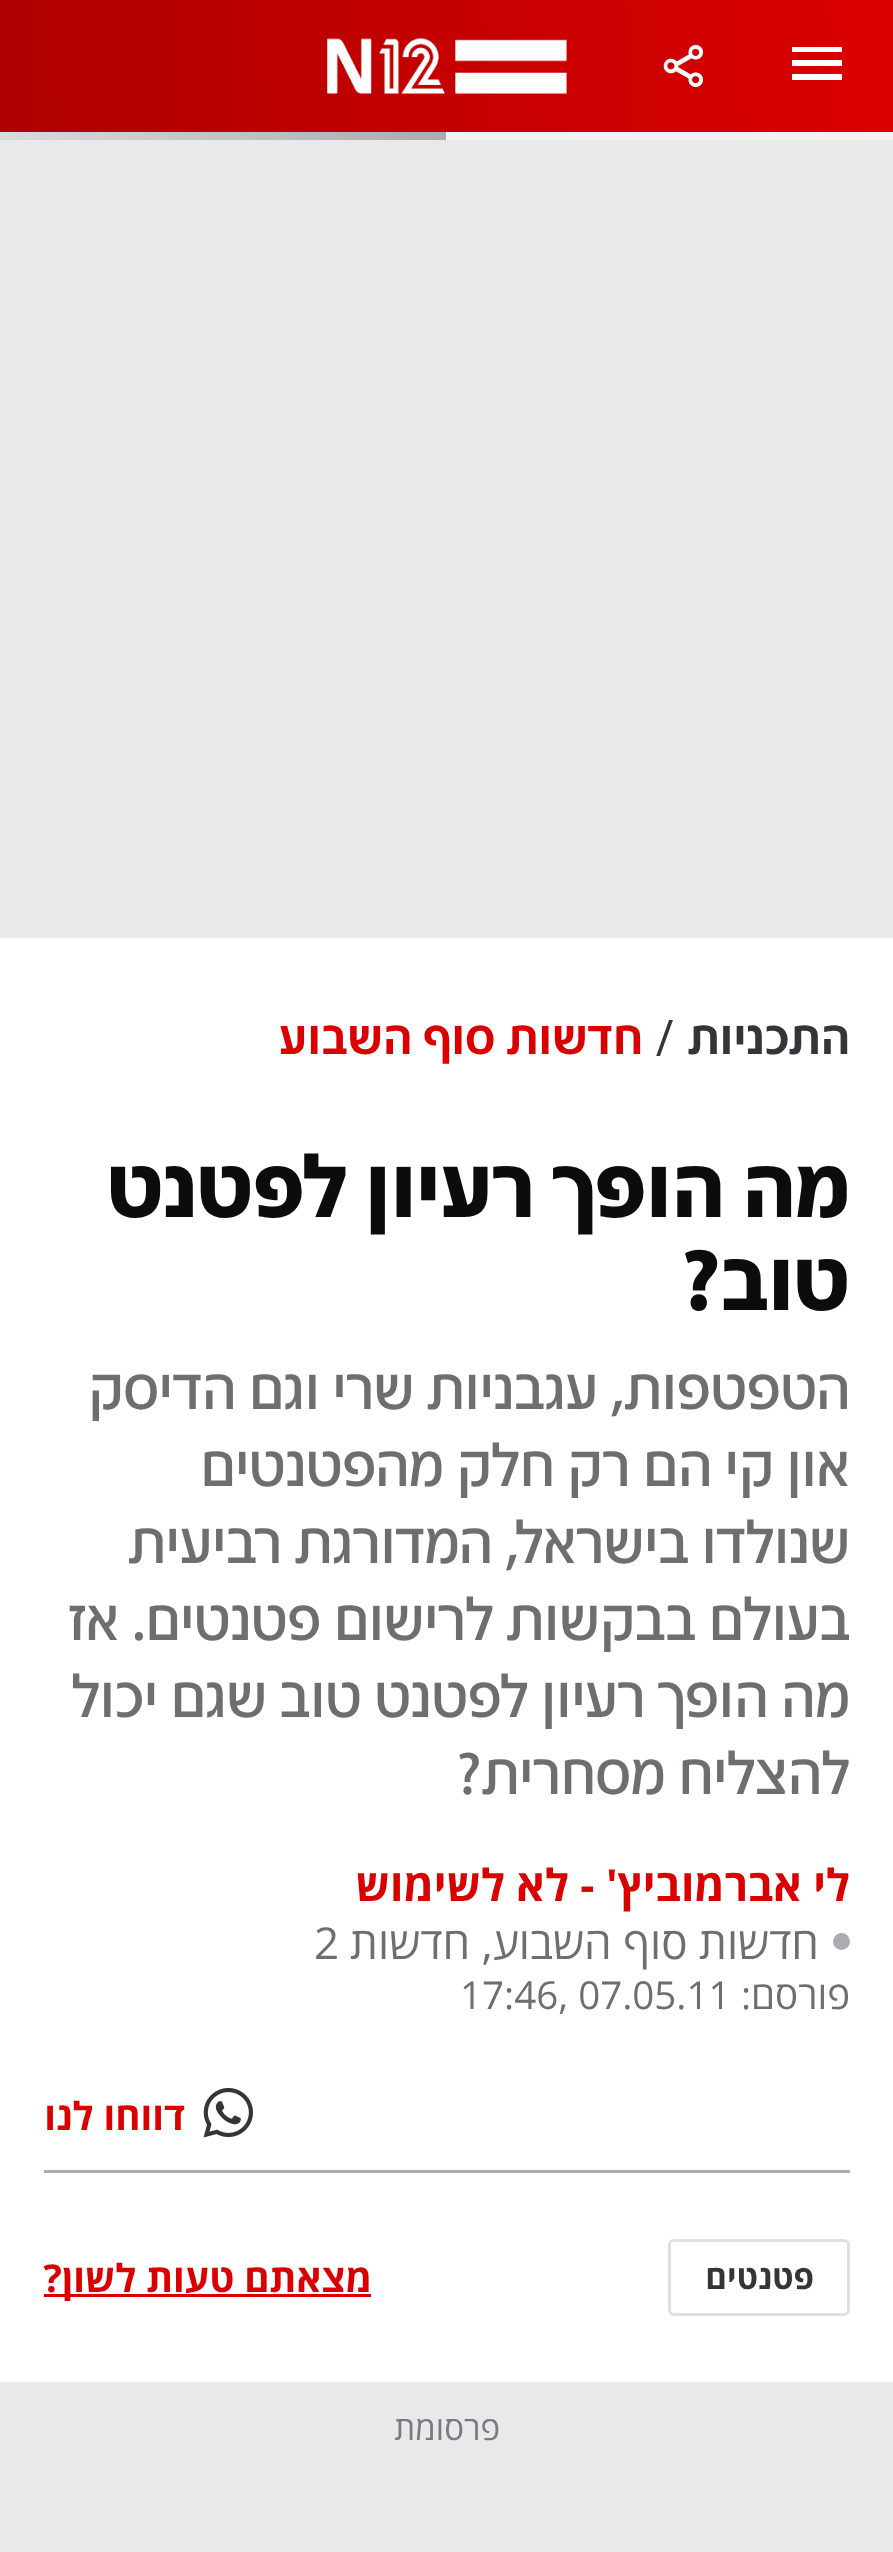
async function draw(canvas) {
  canvas.width = 893;
  canvas.height = 2552;
  const ctx = canvas.getContext('2d');
  ctx.miterLimit = 4;
  ctx.fontKerning = 'normal';
  function label(s, x, y, font, color) {
    ctx.font = font;
    ctx.fillStyle = color;
    ctx.fillText(s, x, y);
  }
  function rect(x, y, w, h, color) {
    ctx.fillStyle = color;
    ctx.fillRect(x, y, w, h);
  }
  async function image(src, x, y, w, h) {
    const img = new Image();
    img.src = src;
    await img.decode();
    ctx.drawImage(img, x, y, w, h);
  }
  let gradient, path;

  rect(0, 0, 893, 2552, '#e9e9e9');
  gradient = ctx.createLinearGradient(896, 50, -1.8, 82);
  gradient.addColorStop(0, '#db0000');
  gradient.addColorStop(1, '#ae0000');
  ctx.fillStyle = gradient;
  ctx.fillRect(0, 0, 893, 132);
  ctx.fillStyle = '#fff';
  path = new Path2D('M792 52V47H842V52ZM792 66H842V60H792ZM792 80H842V74H792Z');
  ctx.fill(path, 'evenodd');
  await image('assets/img1.png', 663, 45, 40, 42);
  await image('assets/img2.png', 327, 38, 240, 56);
  rect(446, 132, 447, 8, '#f2f2f2');
  gradient = ctx.createLinearGradient(0, 136, 446, 136);
  gradient.addColorStop(0, '#d9dadb');
  gradient.addColorStop(1, '#aaacaf');
  ctx.fillStyle = gradient;
  ctx.fillRect(0, 132, 446, 8);
  rect(0, 938, 893, 1444, '#fff');
  ctx.letterSpacing = '0.5px';
  ctx.direction = 'rtl';
  label('התכניות', 850, 1054, '500 49.5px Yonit', '#333538');
  ctx.letterSpacing = '0px';
  ctx.direction = 'ltr';
  label('/', 656, 1054, '49.5px Yonit', '#333538');
  ctx.letterSpacing = '0.5px';
  ctx.direction = 'rtl';
  label('חדשות סוף השבוע', 643, 1054, '500 49.5px Yonit', '#db0000');
  ctx.letterSpacing = '0px';
  label('מה הופך רעיון לפטנט', 850, 1217, 'bold 88px Yonit', '#0c0c0c');
  label('טוב?', 850, 1310, 'bold 88px Yonit', '#0c0c0c');
  label('הטפטפות, עגבניות שרי וגם הדיסק', 850, 1409, '60.5px Yonit', '#6c6e70');
  label('און קי הם רק חלק מהפטנטים', 850, 1486, '60.5px Yonit', '#6c6e70');
  label('שנולדו בישראל, המדורגת רביעית', 850, 1563, '60.5px Yonit', '#6c6e70');
  label('בעולם בבקשות לרישום פטנטים. אז', 850, 1640, '60.5px Yonit', '#6c6e70');
  label('מה הופך רעיון לפטנט טוב שגם יכול', 850, 1717, '60.5px Yonit', '#6c6e70');
  label('להצליח מסחרית?', 850, 1794, '60.5px Yonit', '#6c6e70');
  label('לי אברמוביץ\' - לא לשימוש', 850, 1901, 'bold 44px Open Sans', '#db0000');
  ctx.fillStyle = '#aaacaf';
  ctx.beginPath();
  ctx.arc(841.5, 1941.5, 8.5, 0, 2 * Math.PI);
  ctx.fill();
  label('חדשות סוף השבוע, חדשות', 819, 1959, '44px Open Sans', '#6c6e70');
  ctx.direction = 'ltr';
  label('2', 314, 1959, '44px Open Sans', '#6c6e70');
  ctx.direction = 'rtl';
  label('פורסם:', 850, 2009, '38.5px Open Sans', '#6c6e70');
  ctx.direction = 'ltr';
  label('17:46, 07.05.11', 460, 2009, '38.5px Open Sans', '#6c6e70');
  rect(44, 2170, 806, 3, '#aaacaf');
  await image('assets/img3.png', 203, 2088, 50, 50);
  ctx.direction = 'rtl';
  label('דווחו לנו', 185, 2130, 'bold 38.5px Open Sans', '#db0000');
  ctx.beginPath();
  ctx.roundRect(669.5, 2240.5, 179, 74, 4.5);
  ctx.strokeStyle = '#e0e0e0';
  ctx.lineWidth = 3;
  ctx.stroke();
  label('פטנטים', 814, 2289, 'bold 33px Open Sans', '#333538');
  rect(44, 2294, 327, 3, '#db0000');
  label('מצאתם טעות לשון?', 372, 2292, 'bold 38.5px Open Sans', '#db0000');
  label('פרסומת', 500, 2440, '33px Open Sans', '#757a86');
}

draw(document.querySelector('canvas'));
